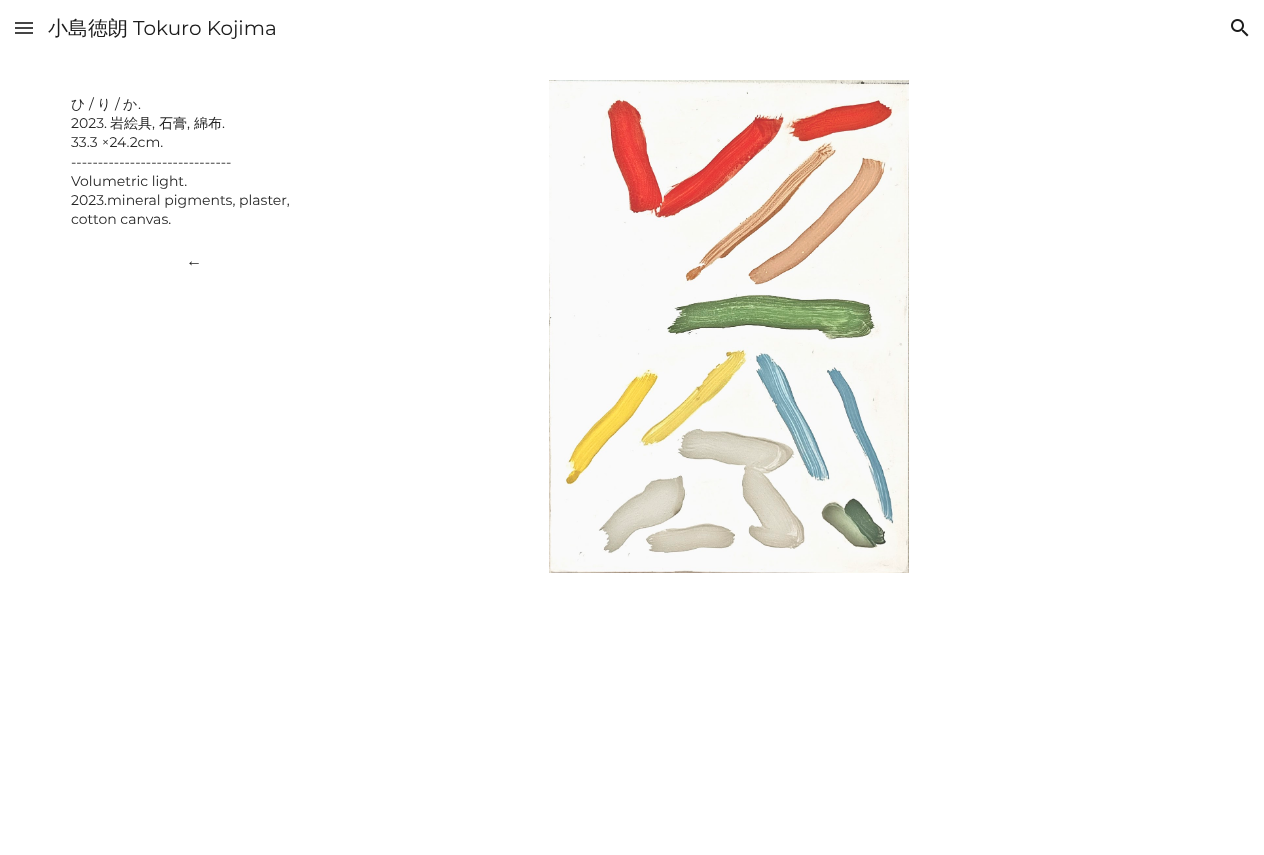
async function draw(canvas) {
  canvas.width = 1264;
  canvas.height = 855;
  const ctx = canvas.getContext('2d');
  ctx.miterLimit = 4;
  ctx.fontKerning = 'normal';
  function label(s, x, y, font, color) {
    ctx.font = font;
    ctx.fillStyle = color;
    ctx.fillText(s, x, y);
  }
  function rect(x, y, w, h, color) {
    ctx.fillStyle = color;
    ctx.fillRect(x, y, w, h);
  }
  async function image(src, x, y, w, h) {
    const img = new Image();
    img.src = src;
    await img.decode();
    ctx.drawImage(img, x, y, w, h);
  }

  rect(0, 0, 1264, 855, '#fff');
  rect(15, 22, 18, 2, '#454545');
  rect(15, 27, 18, 2, '#454545');
  rect(15, 32, 18, 2, '#454545');
  label('小島徳朗', 48, 35, '500 20px WenQuanYi Zen Hei', '#1c1c1c');
  label('Tokuro Kojima', 133, 35, '20px Montserrat', '#1c1c1c');
  await image('assets/img1.png', 1231, 19, 18, 18);
  label('ひ', 71, 109, '500 14px WenQuanYi Zen Hei', '#262626');
  label('/', 89, 109, '14px Montserrat', '#262626');
  label('り', 97, 109, '500 14px WenQuanYi Zen Hei', '#262626');
  label('/', 115, 109, '14px Montserrat', '#262626');
  label('か', 123, 109, '500 14px WenQuanYi Zen Hei', '#262626');
  label('.', 138, 109, '14px Montserrat', '#262626');
  label('2023.', 71, 128, '14px Montserrat', '#262626');
  label('岩絵具', 110, 128, '500 14px WenQuanYi Zen Hei', '#262626');
  label(',', 152, 128, '14px Montserrat', '#262626');
  label('石膏', 159, 128, '500 14px WenQuanYi Zen Hei', '#262626');
  label(',', 187, 128, '14px Montserrat', '#262626');
  label('綿布', 194, 128, '500 14px WenQuanYi Zen Hei', '#262626');
  label('.', 222, 128, '14px Montserrat', '#262626');
  label('33.3 ×24.2cm.', 71, 147, '14px Montserrat', '#262626');
  label('------------------------------', 71, 167, '14px Montserrat', '#262626');
  label('Volumetric light.', 71, 186, '14px Montserrat', '#262626');
  label('2023.mineral pigments, plaster,', 71, 205, '14px Montserrat', '#262626');
  label('cotton canvas.', 71, 224, '14px Montserrat', '#262626');
  label('←', 186, 266, '16px Liberation Serif', '#1c1c1c');
  await image('assets/img2.png', 549, 80, 360, 493);
}

draw(document.querySelector('canvas'));
